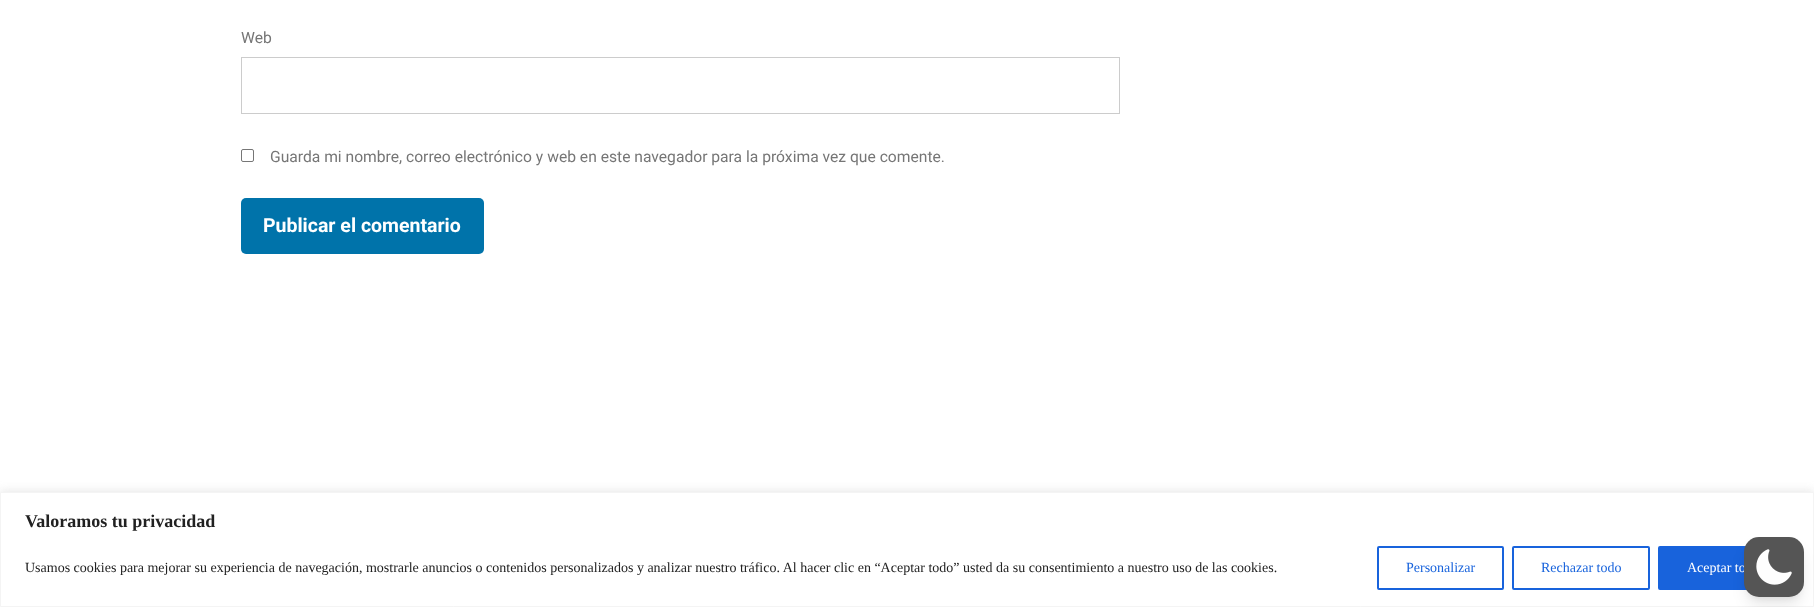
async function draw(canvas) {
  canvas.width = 1814;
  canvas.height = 607;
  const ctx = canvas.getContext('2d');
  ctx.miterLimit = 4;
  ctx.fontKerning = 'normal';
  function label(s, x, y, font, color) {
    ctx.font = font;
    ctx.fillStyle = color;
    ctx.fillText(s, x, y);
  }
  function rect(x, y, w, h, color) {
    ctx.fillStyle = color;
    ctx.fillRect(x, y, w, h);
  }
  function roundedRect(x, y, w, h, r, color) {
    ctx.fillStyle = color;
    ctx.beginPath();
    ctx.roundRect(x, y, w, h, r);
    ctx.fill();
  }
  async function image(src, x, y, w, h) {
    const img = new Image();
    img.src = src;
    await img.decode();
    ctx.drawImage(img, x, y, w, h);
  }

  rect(0, 0, 1814, 607, '#fff');
  label('Web', 241, 43, '15.65px Roboto', '#767676');
  ctx.strokeStyle = '#ccc';
  ctx.strokeRect(241.5, 57.5, 878, 56);
  ctx.beginPath();
  ctx.roundRect(241.5, 149.5, 12, 12, 1.5);
  ctx.strokeStyle = '#767676';
  ctx.stroke();
  label('Guarda mi nombre, correo electrónico y web en este navegador para la próxima vez que comente.', 270, 162, '15.65px Roboto', '#767676');
  roundedRect(241, 198, 243, 56, 5, '#0073aa');
  label('Publicar el comentario', 263, 232, 'bold 19.5px Roboto', '#fff');
  ctx.fillStyle = '#acabab4d';
  ctx.filter = 'blur(5px)';
  ctx.beginPath();
  ctx.rect(0, 491, 1814, 115);
  ctx.fill();
  ctx.filter = 'none';
  ctx.fillStyle = '#fff';
  ctx.beginPath();
  ctx.rect(0.5, 492.5, 1813, 114);
  ctx.fill();
  ctx.strokeStyle = '#f4f4f4';
  ctx.stroke();
  label('Valoramos tu privacidad', 25, 527, 'bold 18px Liberation Serif', '#212121');
  label('Usamos cookies para mejorar su experiencia de navegación, mostrarle anuncios o contenidos personalizados y analizar nuestro tráfico. Al hacer clic en “Aceptar todo” usted da su consentimiento a nuestro uso de las cookies.', 25, 572, '14px Liberation Serif', '#212121');
  ctx.beginPath();
  ctx.roundRect(1378, 547, 125, 42, 1);
  ctx.strokeStyle = '#1863dc';
  ctx.lineWidth = 2;
  ctx.stroke();
  label('Personalizar', 1406, 572, '14px Liberation Serif', '#1863dc');
  ctx.beginPath();
  ctx.roundRect(1513, 547, 136, 42, 1);
  ctx.stroke();
  label('Rechazar todo', 1541, 572, '14px Liberation Serif', '#1863dc');
  ctx.beginPath();
  ctx.roundRect(1659, 547, 129, 42, 1);
  ctx.fill();
  ctx.stroke();
  label('Aceptar to', 1687, 572, '14px Liberation Serif', '#fff');
  ctx.fillStyle = '#0000001a';
  ctx.filter = 'blur(3px)';
  ctx.beginPath();
  ctx.roundRect(1748, 545, 52, 52, 11);
  ctx.fill();
  ctx.filter = 'none';
  ctx.filter = 'blur(7.5px)';
  ctx.beginPath();
  ctx.roundRect(1747, 550, 54, 54, 12);
  ctx.fill();
  ctx.filter = 'none';
  roundedRect(1744, 537, 60, 60, 15, '#555');
  await image('assets/img1.png', 1756, 549, 36, 36);
}

draw(document.querySelector('canvas'));
